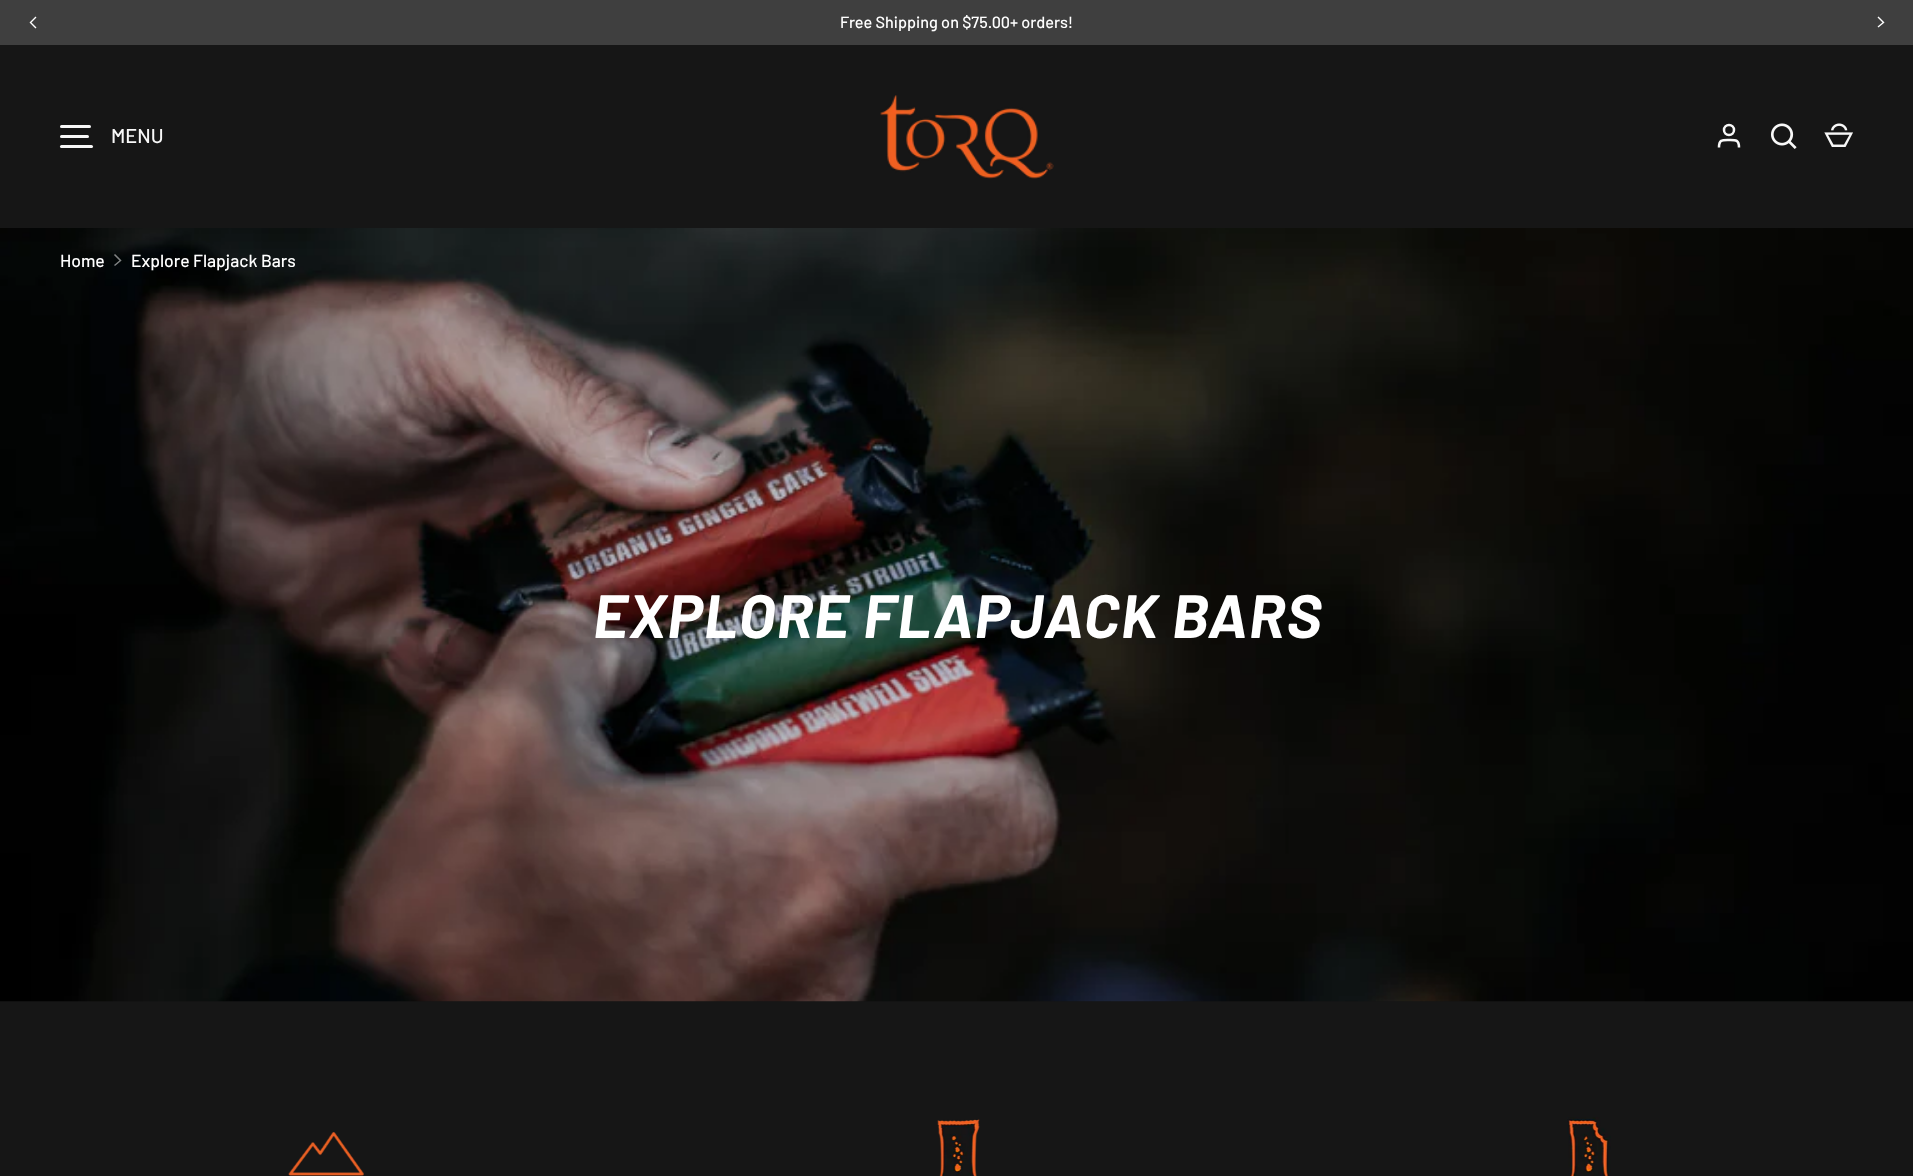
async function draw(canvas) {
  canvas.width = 1913;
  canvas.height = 1176;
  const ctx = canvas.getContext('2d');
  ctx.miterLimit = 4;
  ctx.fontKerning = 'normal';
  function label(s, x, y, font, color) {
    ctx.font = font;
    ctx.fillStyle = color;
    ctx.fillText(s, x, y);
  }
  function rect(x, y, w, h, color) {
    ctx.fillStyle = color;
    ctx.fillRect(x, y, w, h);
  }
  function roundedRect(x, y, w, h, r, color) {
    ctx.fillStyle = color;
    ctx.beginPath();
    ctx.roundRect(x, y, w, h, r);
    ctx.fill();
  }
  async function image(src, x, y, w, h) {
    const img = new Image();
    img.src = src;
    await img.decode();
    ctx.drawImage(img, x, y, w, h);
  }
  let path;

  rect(0, 0, 1913, 1176, '#161616');
  rect(0, 0, 1913, 45, '#3f3f3f');
  label('Free Shipping on $75.00+ orders!', 840, 28, '500 16.25px Barlow', '#fff');
  path = new Path2D('M36 17L30.5 22.5L36 28');
  ctx.strokeStyle = '#fff';
  ctx.lineWidth = 1.4;
  ctx.stroke(path);
  path = new Path2D('M1878 17L1883.5 22.5L1878 27');
  ctx.stroke(path);
  roundedRect(60, 125, 31, 3, 1.5, '#f8f8f8');
  roundedRect(60, 135, 29, 3, 1.5, '#f8f8f8');
  roundedRect(60, 145, 33, 3, 1.5, '#f8f8f8');
  label('MENU', 111, 143, '500 20px Barlow', '#f8f8f8');
  await image('assets/img1.png', 880, 95, 174, 84);
  ctx.beginPath();
  ctx.arc(1729, 130, 5, 0, 2 * Math.PI);
  ctx.strokeStyle = '#f8f8f8';
  ctx.lineWidth = 2.5;
  ctx.stroke();
  path = new Path2D('M1739 147.5C1739 139.5 1735.5 140 1729 140C1722 140 1719 139.5 1719 147.5');
  ctx.stroke(path);
  await image('assets/img2.png', 1771, 123, 26, 26);
  await image('assets/img3.png', 1824, 123, 29, 24);
  await image('assets/img4.png', 0, 228, 1913, 774);
  label('Home', 60, 267, '500 17.5px Barlow', '#fff');
  path = new Path2D('M114.5 254.5L120.5 260.5L114.5 265.5');
  ctx.strokeStyle = '#ffffff80';
  ctx.lineWidth = 1.5;
  ctx.stroke(path);
  label('Explore Flapjack Bars', 131, 267, '500 17.5px Barlow', '#fff');
  ctx.letterSpacing = '1.25px';
  label('EXPLORE FLAPJACK BARS', 593, 638, 'italic bold 61px Barlow', '#fff');
  await image('assets/img5.png', 288, 1132, 76, 44);
  await image('assets/img6.png', 937, 1119, 43, 57);
  await image('assets/img7.png', 1567, 1117, 44, 59);
}

draw(document.querySelector('canvas'));
